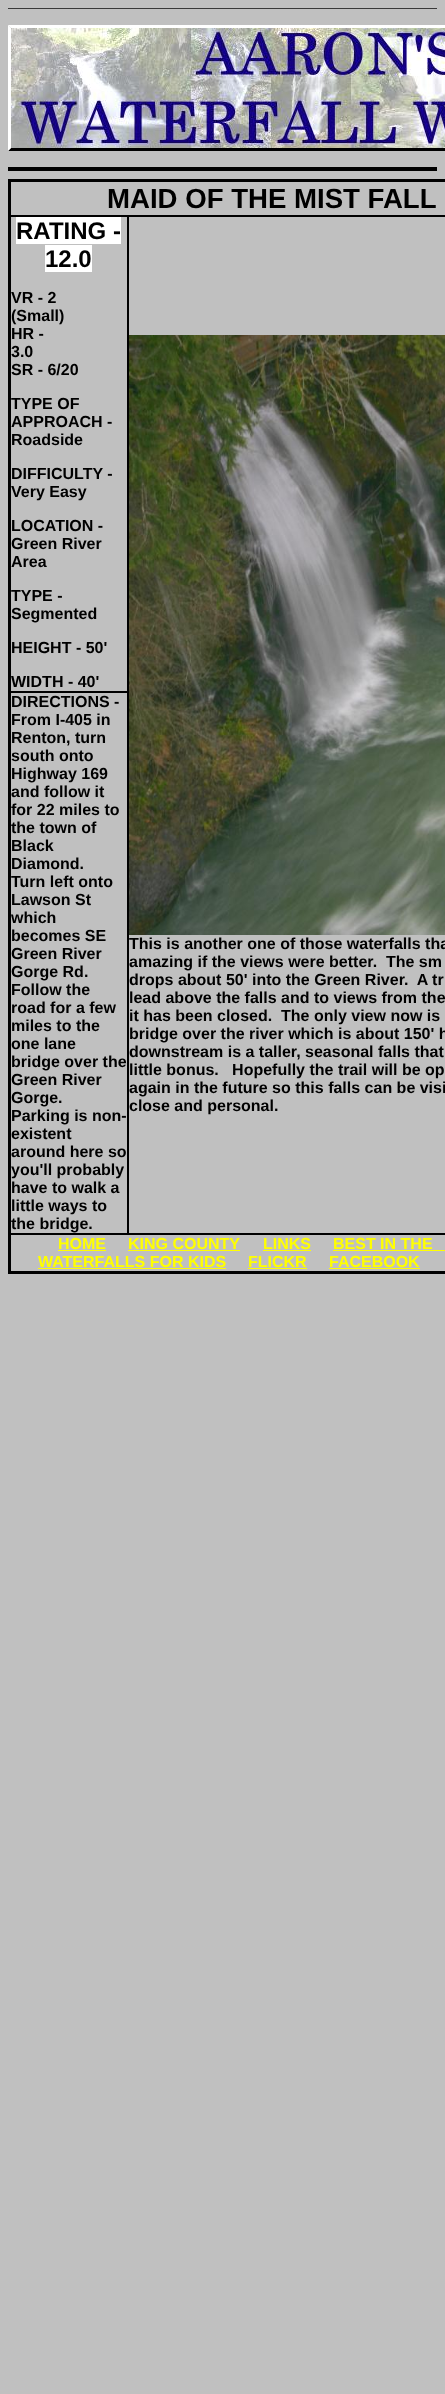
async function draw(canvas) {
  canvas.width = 445;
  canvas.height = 2394;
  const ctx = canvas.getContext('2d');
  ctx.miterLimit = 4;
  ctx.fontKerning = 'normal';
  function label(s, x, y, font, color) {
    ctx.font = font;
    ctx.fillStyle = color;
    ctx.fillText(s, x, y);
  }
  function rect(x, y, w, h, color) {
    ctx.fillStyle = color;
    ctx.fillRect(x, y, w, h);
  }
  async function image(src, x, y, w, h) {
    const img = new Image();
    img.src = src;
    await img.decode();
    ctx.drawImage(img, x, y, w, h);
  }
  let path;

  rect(0, 0, 445, 2394, '#c0c0c0');
  rect(8, 8, 429, 1, '#393939');
  ctx.fillStyle = '#fff';
  path = new Path2D('M8 25H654L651 28H11Z');
  ctx.fill(path);
  ctx.fillStyle = '#000';
  path = new Path2D('M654 151H8L11 148H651Z');
  ctx.fill(path);
  ctx.fillStyle = '#fff';
  path = new Path2D('M8 151V25L11 28V148Z');
  ctx.fill(path);
  await image('assets/img1.png', 11, 28, 434, 120);
  rect(8, 167, 429, 4, '#000');
  ctx.strokeStyle = '#000';
  ctx.lineWidth = 2;
  ctx.strokeRect(9, 180, 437, 1093);
  ctx.lineWidth = 1;
  ctx.strokeRect(10.5, 181.5, 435, 34);
  label('MAID OF THE MIST FALL', 107, 208, 'bold 27.6px Liberation Sans', '#000');
  ctx.strokeRect(10.5, 216.5, 117, 475);
  rect(16, 217, 105, 27, '#fff');
  label('RATING -', 16, 239, 'bold 24px Liberation Sans', '#000');
  rect(45, 245, 47, 27, '#fff');
  label('12.0', 45, 267, 'bold 24px Liberation Sans', '#000');
  label('VR - 2', 11, 303, 'bold 16px Liberation Sans', '#000');
  label('(Small)', 11, 321, 'bold 16px Liberation Sans', '#000');
  label('HR -', 11, 339, 'bold 16px Liberation Sans', '#000');
  label('3.0', 11, 357, 'bold 16px Liberation Sans', '#000');
  label('SR - 6/20', 11, 375, 'bold 16px Liberation Sans', '#000');
  label('TYPE OF', 11, 409, 'bold 16px Liberation Sans', '#000');
  label('APPROACH -', 11, 427, 'bold 16px Liberation Sans', '#000');
  label('Roadside', 11, 445, 'bold 16px Liberation Sans', '#000');
  label('DIFFICULTY -', 11, 479, 'bold 16px Liberation Sans', '#000');
  label('Very Easy', 11, 497, 'bold 16px Liberation Sans', '#000');
  label('LOCATION -', 11, 531, 'bold 16px Liberation Sans', '#000');
  label('Green River', 11, 549, 'bold 16px Liberation Sans', '#000');
  label('Area', 11, 567, 'bold 16px Liberation Sans', '#000');
  label('TYPE -', 11, 601, 'bold 16px Liberation Sans', '#000');
  label('Segmented', 11, 619, 'bold 16px Liberation Sans', '#000');
  label('HEIGHT - 50\'', 11, 653, 'bold 16px Liberation Sans', '#000');
  label('WIDTH - 40\'', 11, 687, 'bold 16px Liberation Sans', '#000');
  ctx.strokeRect(128.5, 216.5, 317, 1017);
  await image('assets/img2.png', 129, 335, 316, 600);
  label('This is another one of those waterfalls tha', 129, 949, 'bold 16px Liberation Sans', '#000');
  label('amazing if the views were better.  The sm', 129, 967, 'bold 16px Liberation Sans', '#000');
  label('drops about 50\' into the Green River.  A tr', 129, 985, 'bold 16px Liberation Sans', '#000');
  label('lead above the falls and to views from the', 129, 1003, 'bold 16px Liberation Sans', '#000');
  label('it has been closed.  The only view now is', 129, 1021, 'bold 16px Liberation Sans', '#000');
  label('bridge over the river which is about 150\' h', 129, 1039, 'bold 16px Liberation Sans', '#000');
  label('downstream is a taller, seasonal falls that', 129, 1057, 'bold 16px Liberation Sans', '#000');
  label('little bonus.   Hopefully the trail will be op', 129, 1075, 'bold 16px Liberation Sans', '#000');
  label('again in the future so this falls can be visi', 129, 1093, 'bold 16px Liberation Sans', '#000');
  label('close and personal.', 129, 1111, 'bold 16px Liberation Sans', '#000');
  ctx.strokeRect(10.5, 692.5, 117, 541);
  label('DIRECTIONS -', 11, 707, 'bold 16px Liberation Sans', '#000');
  label('From I-405 in', 11, 725, 'bold 16px Liberation Sans', '#000');
  label('Renton, turn', 11, 743, 'bold 16px Liberation Sans', '#000');
  label('south onto', 11, 761, 'bold 16px Liberation Sans', '#000');
  label('Highway 169', 11, 779, 'bold 16px Liberation Sans', '#000');
  label('and follow it', 11, 797, 'bold 16px Liberation Sans', '#000');
  label('for 22 miles to', 11, 815, 'bold 16px Liberation Sans', '#000');
  label('the town of', 11, 833, 'bold 16px Liberation Sans', '#000');
  label('Black', 11, 851, 'bold 16px Liberation Sans', '#000');
  label('Diamond.', 11, 869, 'bold 16px Liberation Sans', '#000');
  label('Turn left onto', 11, 887, 'bold 16px Liberation Sans', '#000');
  label('Lawson St', 11, 905, 'bold 16px Liberation Sans', '#000');
  label('which', 11, 923, 'bold 16px Liberation Sans', '#000');
  label('becomes SE', 11, 941, 'bold 16px Liberation Sans', '#000');
  label('Green River', 11, 959, 'bold 16px Liberation Sans', '#000');
  label('Gorge Rd.', 11, 977, 'bold 16px Liberation Sans', '#000');
  label('Follow the', 11, 995, 'bold 16px Liberation Sans', '#000');
  label('road for a few', 11, 1013, 'bold 16px Liberation Sans', '#000');
  label('miles to the', 11, 1031, 'bold 16px Liberation Sans', '#000');
  label('one lane', 11, 1049, 'bold 16px Liberation Sans', '#000');
  label('bridge over the', 11, 1067, 'bold 16px Liberation Sans', '#000');
  label('Green River', 11, 1085, 'bold 16px Liberation Sans', '#000');
  label('Gorge.', 11, 1103, 'bold 16px Liberation Sans', '#000');
  label('Parking is non-', 11, 1121, 'bold 16px Liberation Sans', '#000');
  label('existent', 11, 1139, 'bold 16px Liberation Sans', '#000');
  label('around here so', 11, 1157, 'bold 16px Liberation Sans', '#000');
  label('you\'ll probably', 11, 1175, 'bold 16px Liberation Sans', '#000');
  label('have to walk a', 11, 1193, 'bold 16px Liberation Sans', '#000');
  label('little ways to', 11, 1211, 'bold 16px Liberation Sans', '#000');
  label('the bridge.', 11, 1229, 'bold 16px Liberation Sans', '#000');
  ctx.strokeRect(10.5, 1234.5, 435, 37);
  label('HOME', 58, 1249, 'bold 16px Liberation Sans', '#ff0');
  rect(58, 1250, 48, 1, '#ff0');
  label('KING COUNTY', 128, 1249, 'bold 16px Liberation Sans', '#ff0');
  rect(128, 1250, 112, 1, '#ff0');
  label('LINKS', 263, 1249, 'bold 16px Liberation Sans', '#ff0');
  rect(263, 1250, 48, 1, '#ff0');
  label('BEST IN THE', 333, 1249, 'bold 16px Liberation Sans', '#ff0');
  rect(333, 1250, 112, 1, '#ff0');
  label('WATERFALLS FOR KIDS', 38, 1267, 'bold 16px Liberation Sans', '#ff0');
  rect(38, 1268, 188, 1, '#ff0');
  label('FLICKR', 248, 1267, 'bold 16px Liberation Sans', '#ff0');
  rect(248, 1268, 59, 1, '#ff0');
  label('FACEBOOK', 329, 1267, 'bold 16px Liberation Sans', '#ff0');
  rect(329, 1268, 91, 1, '#ff0');
}

draw(document.querySelector('canvas'));
